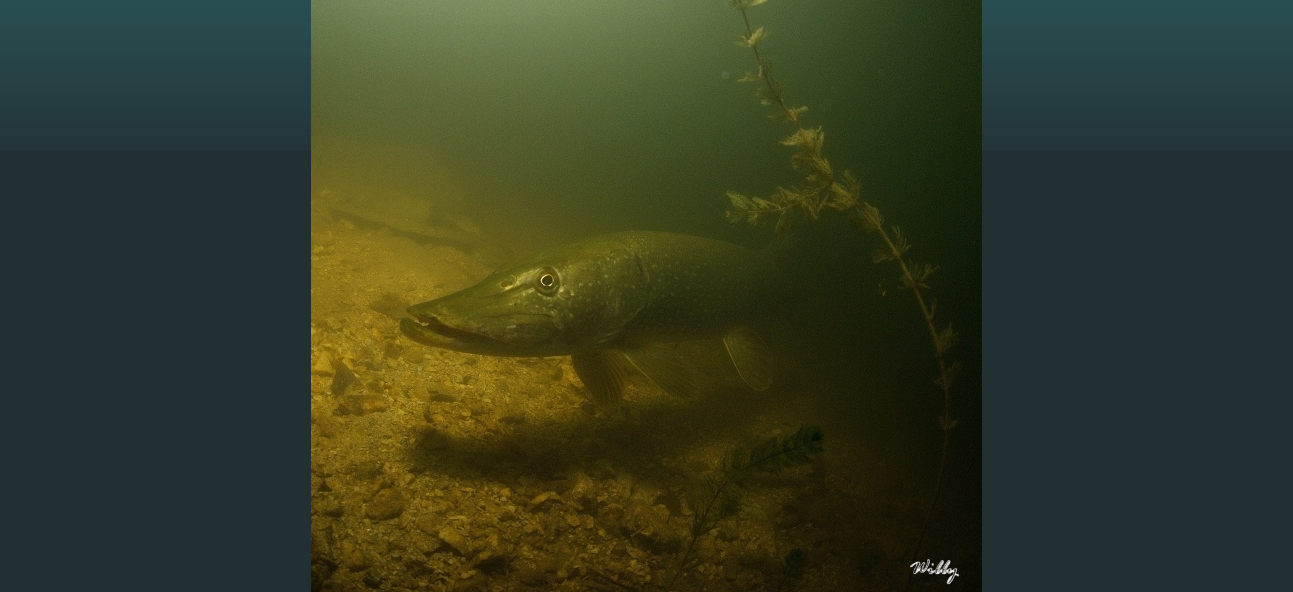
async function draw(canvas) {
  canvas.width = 1293;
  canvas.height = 592;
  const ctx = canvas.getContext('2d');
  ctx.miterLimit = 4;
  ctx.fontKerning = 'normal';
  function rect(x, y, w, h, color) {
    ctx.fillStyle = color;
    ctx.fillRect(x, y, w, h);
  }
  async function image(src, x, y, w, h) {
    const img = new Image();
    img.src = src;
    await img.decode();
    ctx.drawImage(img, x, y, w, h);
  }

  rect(0, 0, 1293, 592, '#223034');
  await image('assets/img1.png', 0, 0, 1293, 150);
  await image('assets/img2.png', 311, 0, 671, 592);
}

draw(document.querySelector('canvas'));
